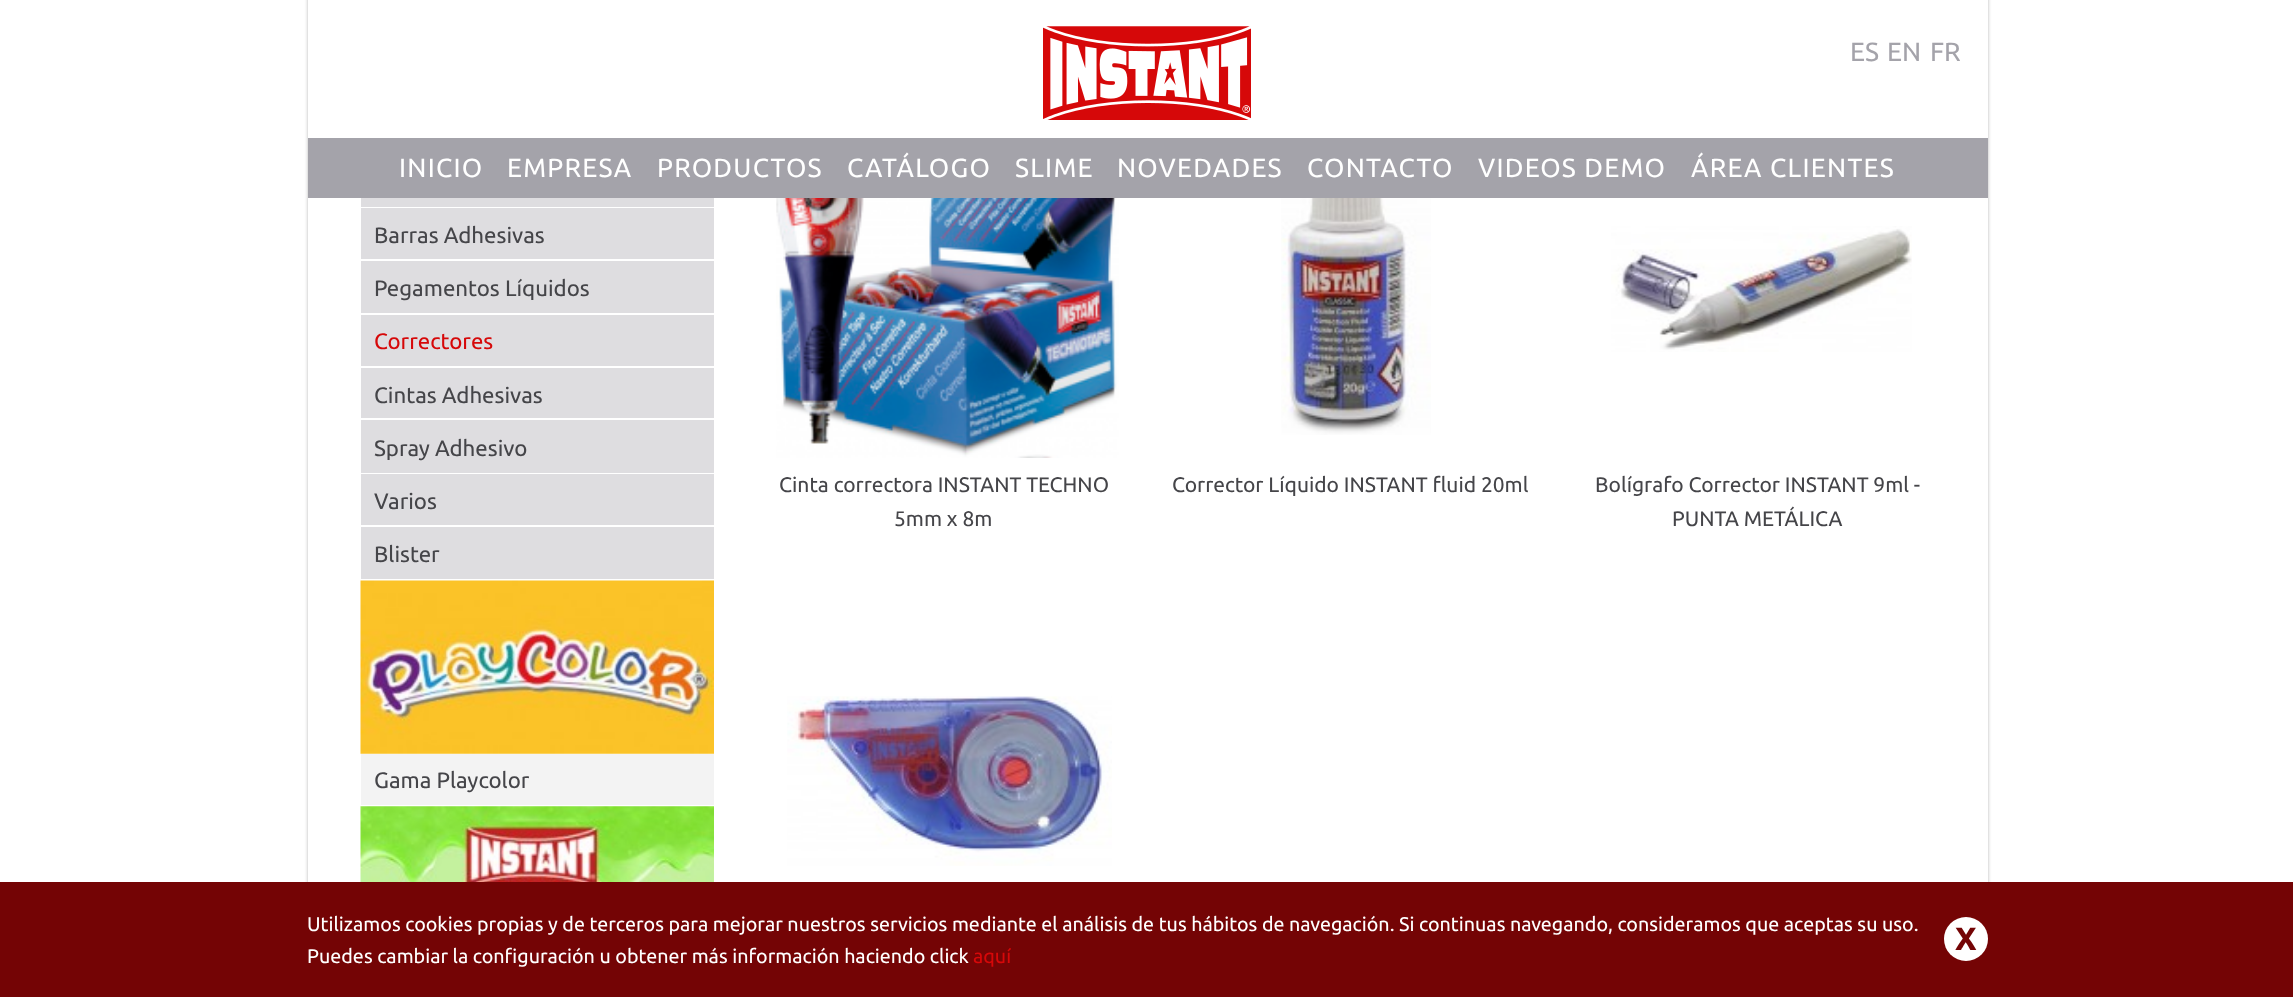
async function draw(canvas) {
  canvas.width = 2293;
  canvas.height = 997;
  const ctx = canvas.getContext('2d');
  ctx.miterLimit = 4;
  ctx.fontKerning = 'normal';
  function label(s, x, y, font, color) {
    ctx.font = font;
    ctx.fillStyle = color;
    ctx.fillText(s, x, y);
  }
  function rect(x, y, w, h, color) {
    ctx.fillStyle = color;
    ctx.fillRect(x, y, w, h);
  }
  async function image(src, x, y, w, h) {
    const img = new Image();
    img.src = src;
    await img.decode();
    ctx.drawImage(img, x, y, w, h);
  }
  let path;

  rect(0, 0, 2293, 997, '#fff');
  ctx.save();
  path = new Path2D('M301 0H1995V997H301ZM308-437H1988V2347H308Z');
  ctx.clip(path, 'evenodd');
  ctx.fillStyle = '#000000b3';
  ctx.filter = 'blur(2.5px)';
  ctx.beginPath();
  ctx.rect(310, -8, 1676, 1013);
  ctx.fill();
  ctx.filter = 'none';
  ctx.restore();
  await image('assets/img1.png', 1043, 26, 208, 94);
  label('ES', 1850, 61, '26.25px Ubuntu', '#a4a3aa');
  label('EN', 1887, 61, '26.25px Ubuntu', '#a4a3aa');
  label('FR', 1930, 61, '26.25px Ubuntu', '#a4a3aa');
  rect(308, 138, 1680, 60, '#a4a3aa');
  ctx.letterSpacing = '1.25px';
  label('INICIO', 399, 177, '26.25px Ubuntu', '#fff');
  label('EMPRESA', 507, 177, '26.25px Ubuntu', '#fff');
  label('PRODUCTOS', 657, 177, '26.25px Ubuntu', '#fff');
  label('CATÁLOGO', 847, 177, '26.25px Ubuntu', '#fff');
  label('SLIME', 1015, 177, '26.25px Ubuntu', '#fff');
  label('NOVEDADES', 1117, 177, '26.25px Ubuntu', '#fff');
  label('CONTACTO', 1307, 177, '26.25px Ubuntu', '#fff');
  label('VIDEOS DEMO', 1478, 177, '26.25px Ubuntu', '#fff');
  label('ÁREA CLIENTES', 1691, 177, '26.25px Ubuntu', '#fff');
  rect(361, 198, 353, 9, '#dedde0');
  rect(361, 208, 353, 51, '#dedde0');
  ctx.letterSpacing = '0px';
  label('Barras Adhesivas', 374, 243, '22.25px Ubuntu', '#454549');
  rect(361, 261, 353, 52, '#dedde0');
  label('Pegamentos Líquidos', 374, 296, '22.25px Ubuntu', '#454549');
  rect(361, 315, 353, 51, '#dedde0');
  label('Correctores', 374, 349, '22.25px Ubuntu', '#d60809');
  rect(361, 368, 353, 50, '#dedde0');
  label('Cintas Adhesivas', 374, 403, '22.25px Ubuntu', '#454549');
  rect(361, 420, 353, 53, '#dedde0');
  label('Spray Adhesivo', 374, 456, '22.25px Ubuntu', '#454549');
  rect(361, 474, 353, 51, '#dedde0');
  label('Varios', 374, 509, '22.25px Ubuntu', '#454549');
  rect(361, 527, 353, 52, '#dedde0');
  label('Blister', 374, 562, '22.25px Ubuntu', '#454549');
  await image('assets/img2.png', 360, 580, 354, 174);
  rect(361, 754, 353, 51, '#f3f3f3');
  label('Gama Playcolor', 374, 788, '22.25px Ubuntu', '#454549');
  await image('assets/img3.png', 360, 806, 354, 76);
  await image('assets/img4.png', 776, 198, 343, 260);
  label('Cinta correctora INSTANT TECHNO', 779, 492, '21px Ubuntu', '#454549');
  label('5mm x 8m', 894, 526, '21px Ubuntu', '#454549');
  await image('assets/img5.png', 1281, 198, 150, 237);
  label('Corrector Líquido INSTANT fluid 20ml', 1172, 492, '21px Ubuntu', '#454549');
  await image('assets/img6.png', 1611, 226, 301, 126);
  label('Bolígrafo Corrector INSTANT 9ml -', 1595, 492, '21px Ubuntu', '#454549');
  label('PUNTA METÁLICA', 1672, 526, '21px Ubuntu', '#454549');
  await image('assets/img7.png', 787, 696, 325, 170);
  rect(0, 882, 2293, 115, '#740405');
  label('Utilizamos cookies propias y de terceros para mejorar nuestros servicios mediante el análisis de tus hábitos de navegación. Si continuas navegando, consideramos que aceptas su uso.', 307, 931, '19.7px Ubuntu', '#fff');
  ctx.beginPath();
  ctx.arc(1966, 939, 22, 0, 2 * Math.PI);
  ctx.fill();
  label('X', 1955, 950, 'bold 32px Ubuntu', '#740405');
  label('Puedes cambiar la configuración u obtener más información haciendo click', 307, 963, '19.7px Ubuntu', '#fff');
  label('aquí', 973, 963, '19.7px Ubuntu', '#d60809');
}

draw(document.querySelector('canvas'));
